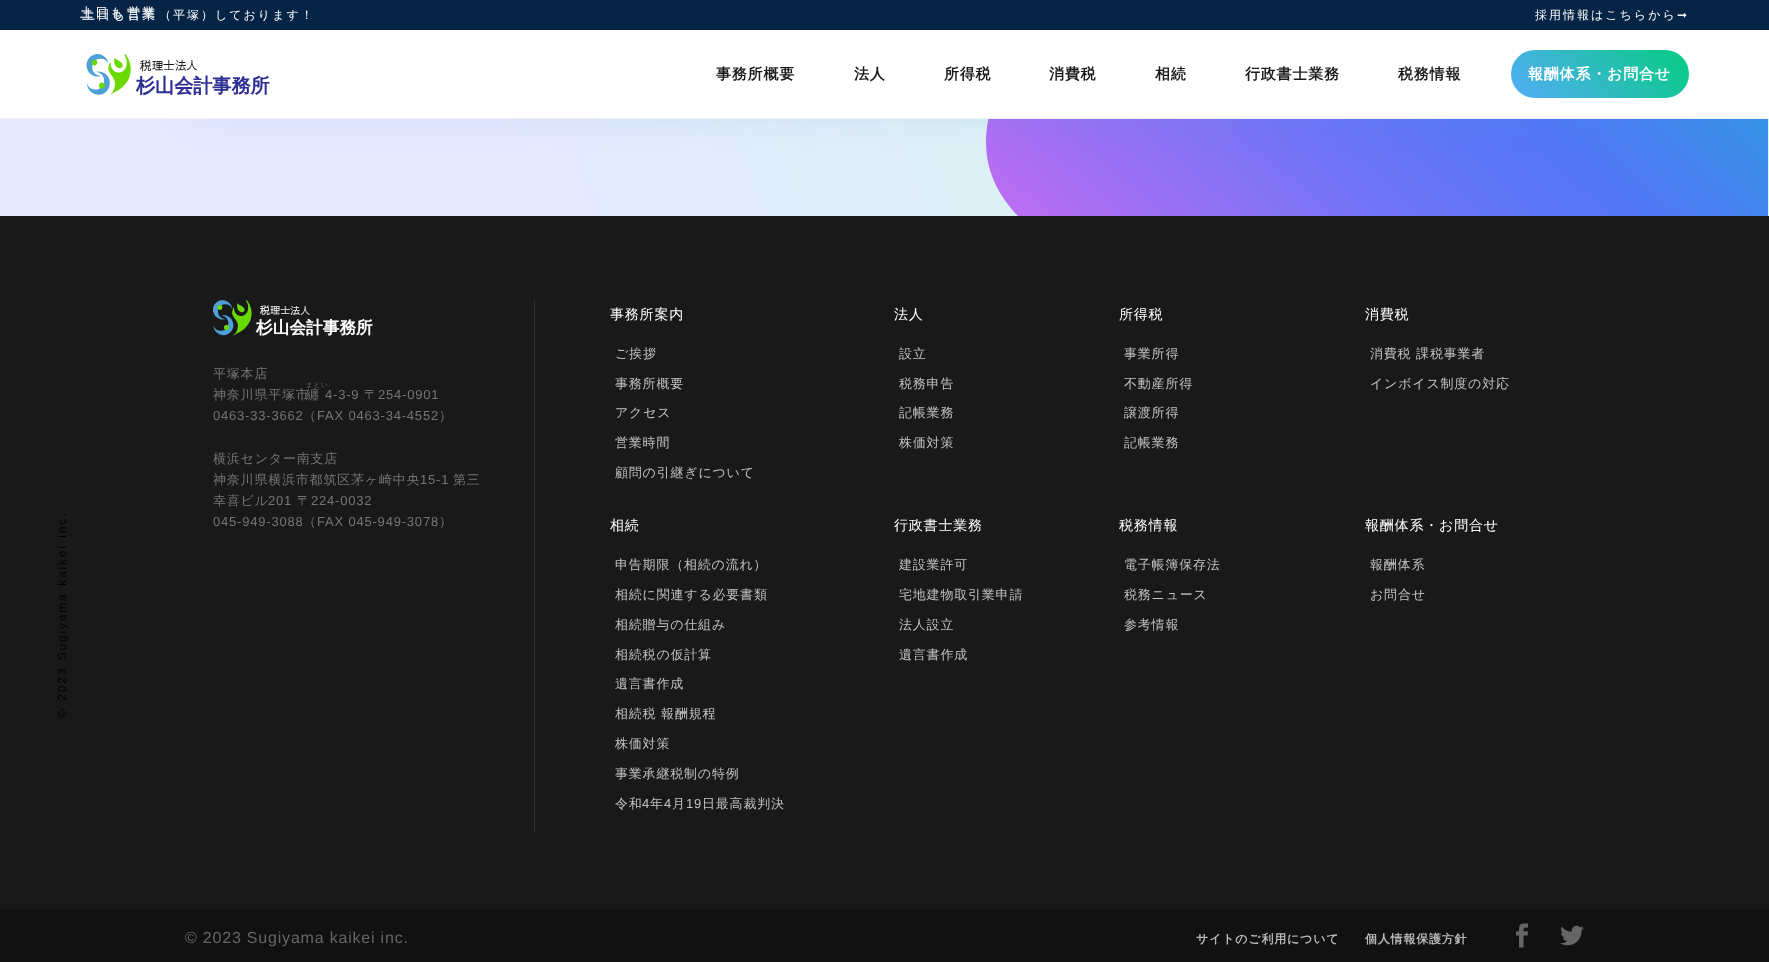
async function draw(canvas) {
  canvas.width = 1769;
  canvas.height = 962;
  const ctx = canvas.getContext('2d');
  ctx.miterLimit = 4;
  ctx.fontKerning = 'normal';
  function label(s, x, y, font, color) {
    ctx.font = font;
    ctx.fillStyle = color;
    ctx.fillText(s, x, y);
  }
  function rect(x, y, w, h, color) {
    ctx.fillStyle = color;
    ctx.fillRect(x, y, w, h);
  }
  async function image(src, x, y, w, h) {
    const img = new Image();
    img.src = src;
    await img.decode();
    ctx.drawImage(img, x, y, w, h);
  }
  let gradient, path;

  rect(0, 0, 1769, 962, '#191919');
  gradient = ctx.createLinearGradient(-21, 159, 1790, -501);
  gradient.addColorStop(0.26, '#e5e9ff');
  gradient.addColorStop(0.66, '#d7f4ef');
  ctx.fillStyle = gradient;
  ctx.fillRect(0, 119, 1769, 97);
  gradient = ctx.createLinearGradient(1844, -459, 1137, 326);
  gradient.addColorStop(0.01, '#b4f759');
  gradient.addColorStop(0.05, '#90ed6f');
  gradient.addColorStop(0.15, '#35d5a5');
  gradient.addColorStop(0.2, '#00c7c5');
  gradient.addColorStop(0.41, '#2d9be0');
  gradient.addColorStop(0.6, '#5277f7');
  gradient.addColorStop(0.66, '#5b76f7');
  gradient.addColorStop(0.77, '#7374f6');
  gradient.addColorStop(0.9, '#9a70f4');
  gradient.addColorStop(1, '#bb6df3');
  ctx.fillStyle = gradient;
  path = new Path2D('M1768-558H1401C1435-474 1483-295 1328-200C1141-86 898 91 1018 216H1768Z');
  ctx.fill(path);
  ctx.fillStyle = '#50a0d82e';
  ctx.filter = 'blur(19.5px)';
  ctx.beginPath();
  ctx.roundRect(184, -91, 1400, 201, 32);
  ctx.fill();
  ctx.filter = 'none';
  rect(0, 0, 1769, 30, '#062445');
  ctx.letterSpacing = '2px';
  label('土日も', 80, 17, '500 13px WenQuanYi Zen Hei', '#fff');
  label('営業', 127, 17, '500 13px WenQuanYi Zen Hei', '#fff');
  label('土日も営業', 82, 19, '500 13px WenQuanYi Zen Hei', '#fff');
  label('（平塚）しております！', 159, 19, '500 12px WenQuanYi Zen Hei', '#fff');
  label('採用情報はこちらから', 1535, 19, '500 12px WenQuanYi Zen Hei', '#fff');
  label('➞', 1677, 19, '12px DejaVu Sans', '#fff');
  rect(0, 30, 1769, 88, '#fff');
  rect(0, 118, 1769, 1, '#f2f2f2');
  await image('assets/img1.png', 86, 54, 184, 42);
  ctx.letterSpacing = '0.8px';
  label('事務所概要', 716, 79, 'bold 15px WenQuanYi Zen Hei', '#1a1a1a');
  label('法人', 854, 79, 'bold 15px WenQuanYi Zen Hei', '#1a1a1a');
  label('所得税', 944, 79, 'bold 15px WenQuanYi Zen Hei', '#1a1a1a');
  label('消費税', 1049, 79, 'bold 15px WenQuanYi Zen Hei', '#1a1a1a');
  label('相続', 1155, 79, 'bold 15px WenQuanYi Zen Hei', '#1a1a1a');
  label('行政書士業務', 1245, 79, 'bold 15px WenQuanYi Zen Hei', '#1a1a1a');
  label('税務情報', 1398, 79, 'bold 15px WenQuanYi Zen Hei', '#1a1a1a');
  gradient = ctx.createLinearGradient(1658, 18, 1542, 130);
  gradient.addColorStop(0, '#05cc80');
  gradient.addColorStop(1, '#54acf8');
  ctx.fillStyle = gradient;
  ctx.beginPath();
  ctx.roundRect(1511, 50, 178, 48, 24);
  ctx.fill();
  label('報酬体系・お問合せ', 1528, 79, 'bold 15px WenQuanYi Zen Hei', '#fff');
  ctx.letterSpacing = '1.8px';
  ctx.wordSpacing = '1.5px';
  ctx.font = '12px Liberation Sans';
  ctx.fillStyle = '#000';
  ctx.save();
  ctx.translate(66, 718);
  ctx.rotate(-90 * Math.PI / 180);
  ctx.fillText('© 2023 Sugiyama kaikei inc.', 0, 0);
  ctx.restore();
  rect(534, 300, 1, 532, '#303030');
  await image('assets/img2.png', 213, 300, 160, 36);
  ctx.letterSpacing = '0.8px';
  ctx.wordSpacing = '0px';
  label('平塚本店', 213, 378, '500 13px WenQuanYi Zen Hei', '#757575');
  label('神奈川県平塚市', 213, 399, '500 13px WenQuanYi Zen Hei', '#757575');
  label('まとい', 306, 387, '500 6.5px WenQuanYi Zen Hei', '#757575');
  label('纏', 306, 399, '500 13px WenQuanYi Zen Hei', '#757575');
  label('4-3-9', 325, 399, '13px Liberation Sans', '#757575');
  label('〒', 364, 399, '500 13px WenQuanYi Zen Hei', '#757575');
  label('254-0901', 378, 399, '13px Liberation Sans', '#757575');
  label('0463-33-3662', 213, 420, '13px Liberation Sans', '#757575');
  label('（', 303, 420, '500 13px WenQuanYi Zen Hei', '#757575');
  label('FAX 0463-34-4552', 317, 420, '13px Liberation Sans', '#757575');
  label('）', 439, 420, '500 13px WenQuanYi Zen Hei', '#757575');
  label('横浜センター南支店', 213, 463, '500 13px WenQuanYi Zen Hei', '#757575');
  label('神奈川県横浜市都筑区茅ヶ崎中央', 213, 484, '500 13px WenQuanYi Zen Hei', '#757575');
  label('15-1', 420, 484, '13px Liberation Sans', '#757575');
  label('第三', 453, 484, '500 13px WenQuanYi Zen Hei', '#757575');
  label('幸喜ビル', 213, 505, '500 13px WenQuanYi Zen Hei', '#757575');
  label('201', 268, 505, '13px Liberation Sans', '#757575');
  label('〒', 297, 505, '500 13px WenQuanYi Zen Hei', '#757575');
  label('224-0032', 311, 505, '13px Liberation Sans', '#757575');
  label('045-949-3088', 213, 526, '13px Liberation Sans', '#757575');
  label('（', 303, 526, '500 13px WenQuanYi Zen Hei', '#757575');
  label('FAX 045-949-3078', 317, 526, '13px Liberation Sans', '#757575');
  label('）', 439, 526, '500 13px WenQuanYi Zen Hei', '#757575');
  label('事務所案内', 610, 319, '500 14px WenQuanYi Zen Hei', '#fff');
  label('ご挨拶', 615, 358, '500 13px WenQuanYi Zen Hei', '#c2c2c2');
  label('事務所概要', 615, 388, '500 13px WenQuanYi Zen Hei', '#c2c2c2');
  label('アクセス', 615, 417, '500 13px WenQuanYi Zen Hei', '#c2c2c2');
  label('営業時間', 615, 447, '500 13px WenQuanYi Zen Hei', '#c2c2c2');
  label('顧問の引継ぎについて', 615, 477, '500 13px WenQuanYi Zen Hei', '#c2c2c2');
  label('法人', 894, 319, '500 14px WenQuanYi Zen Hei', '#fff');
  label('設立', 899, 358, '500 13px WenQuanYi Zen Hei', '#c2c2c2');
  label('税務申告', 899, 388, '500 13px WenQuanYi Zen Hei', '#c2c2c2');
  label('記帳業務', 899, 417, '500 13px WenQuanYi Zen Hei', '#c2c2c2');
  label('株価対策', 899, 447, '500 13px WenQuanYi Zen Hei', '#c2c2c2');
  label('所得税', 1119, 319, '500 14px WenQuanYi Zen Hei', '#fff');
  label('事業所得', 1124, 358, '500 13px WenQuanYi Zen Hei', '#c2c2c2');
  label('不動産所得', 1124, 388, '500 13px WenQuanYi Zen Hei', '#c2c2c2');
  label('譲渡所得', 1124, 417, '500 13px WenQuanYi Zen Hei', '#c2c2c2');
  label('記帳業務', 1124, 447, '500 13px WenQuanYi Zen Hei', '#c2c2c2');
  label('消費税', 1365, 319, '500 14px WenQuanYi Zen Hei', '#fff');
  label('消費税 課税事業者', 1370, 358, '500 13px WenQuanYi Zen Hei', '#c2c2c2');
  label('インボイス制度の対応', 1370, 388, '500 13px WenQuanYi Zen Hei', '#c2c2c2');
  label('相続', 610, 530, '500 14px WenQuanYi Zen Hei', '#fff');
  label('申告期限（相続の流れ）', 615, 569, '500 13px WenQuanYi Zen Hei', '#c2c2c2');
  label('相続に関連する必要書類', 615, 599, '500 13px WenQuanYi Zen Hei', '#c2c2c2');
  label('相続贈与の仕組み', 615, 629, '500 13px WenQuanYi Zen Hei', '#c2c2c2');
  label('相続税の仮計算', 615, 659, '500 13px WenQuanYi Zen Hei', '#c2c2c2');
  label('遺言書作成', 615, 688, '500 13px WenQuanYi Zen Hei', '#c2c2c2');
  label('相続税 報酬規程', 615, 718, '500 13px WenQuanYi Zen Hei', '#c2c2c2');
  label('株価対策', 615, 748, '500 13px WenQuanYi Zen Hei', '#c2c2c2');
  label('事業承継税制の特例', 615, 778, '500 13px WenQuanYi Zen Hei', '#c2c2c2');
  label('令和', 615, 808, '500 13px WenQuanYi Zen Hei', '#c2c2c2');
  label('4', 642, 808, '13px Liberation Sans', '#c2c2c2');
  label('年', 650, 808, '500 13px WenQuanYi Zen Hei', '#c2c2c2');
  label('4', 664, 808, '13px Liberation Sans', '#c2c2c2');
  label('月', 672, 808, '500 13px WenQuanYi Zen Hei', '#c2c2c2');
  label('19', 686, 808, '13px Liberation Sans', '#c2c2c2');
  label('日最高裁判決', 702, 808, '500 13px WenQuanYi Zen Hei', '#c2c2c2');
  label('行政書士業務', 894, 530, '500 14px WenQuanYi Zen Hei', '#fff');
  label('建設業許可', 899, 569, '500 13px WenQuanYi Zen Hei', '#c2c2c2');
  label('宅地建物取引業申請', 899, 599, '500 13px WenQuanYi Zen Hei', '#c2c2c2');
  label('法人設立', 899, 629, '500 13px WenQuanYi Zen Hei', '#c2c2c2');
  label('遺言書作成', 899, 659, '500 13px WenQuanYi Zen Hei', '#c2c2c2');
  label('税務情報', 1119, 530, '500 14px WenQuanYi Zen Hei', '#fff');
  label('電子帳簿保存法', 1124, 569, '500 13px WenQuanYi Zen Hei', '#c2c2c2');
  label('税務ニュース', 1124, 599, '500 13px WenQuanYi Zen Hei', '#c2c2c2');
  label('参考情報', 1124, 629, '500 13px WenQuanYi Zen Hei', '#c2c2c2');
  label('報酬体系・お問合せ', 1365, 530, '500 14px WenQuanYi Zen Hei', '#fff');
  label('報酬体系', 1370, 569, '500 13px WenQuanYi Zen Hei', '#c2c2c2');
  label('お問合せ', 1370, 599, '500 13px WenQuanYi Zen Hei', '#c2c2c2');
  rect(0, 909, 1769, 53, '#111');
  label('© 2023 Sugiyama kaikei inc.', 185, 943, '16px Liberation Sans', '#666');
  label('サイトのご利用について', 1196, 943, 'bold 12px WenQuanYi Zen Hei', '#bbb');
  label('個人情報保護方針', 1365, 943, 'bold 12px WenQuanYi Zen Hei', '#bbb');
  await image('assets/img3.png', 1516, 923, 12, 25);
  await image('assets/img4.png', 1560, 925, 24, 21);
}

draw(document.querySelector('canvas'));
